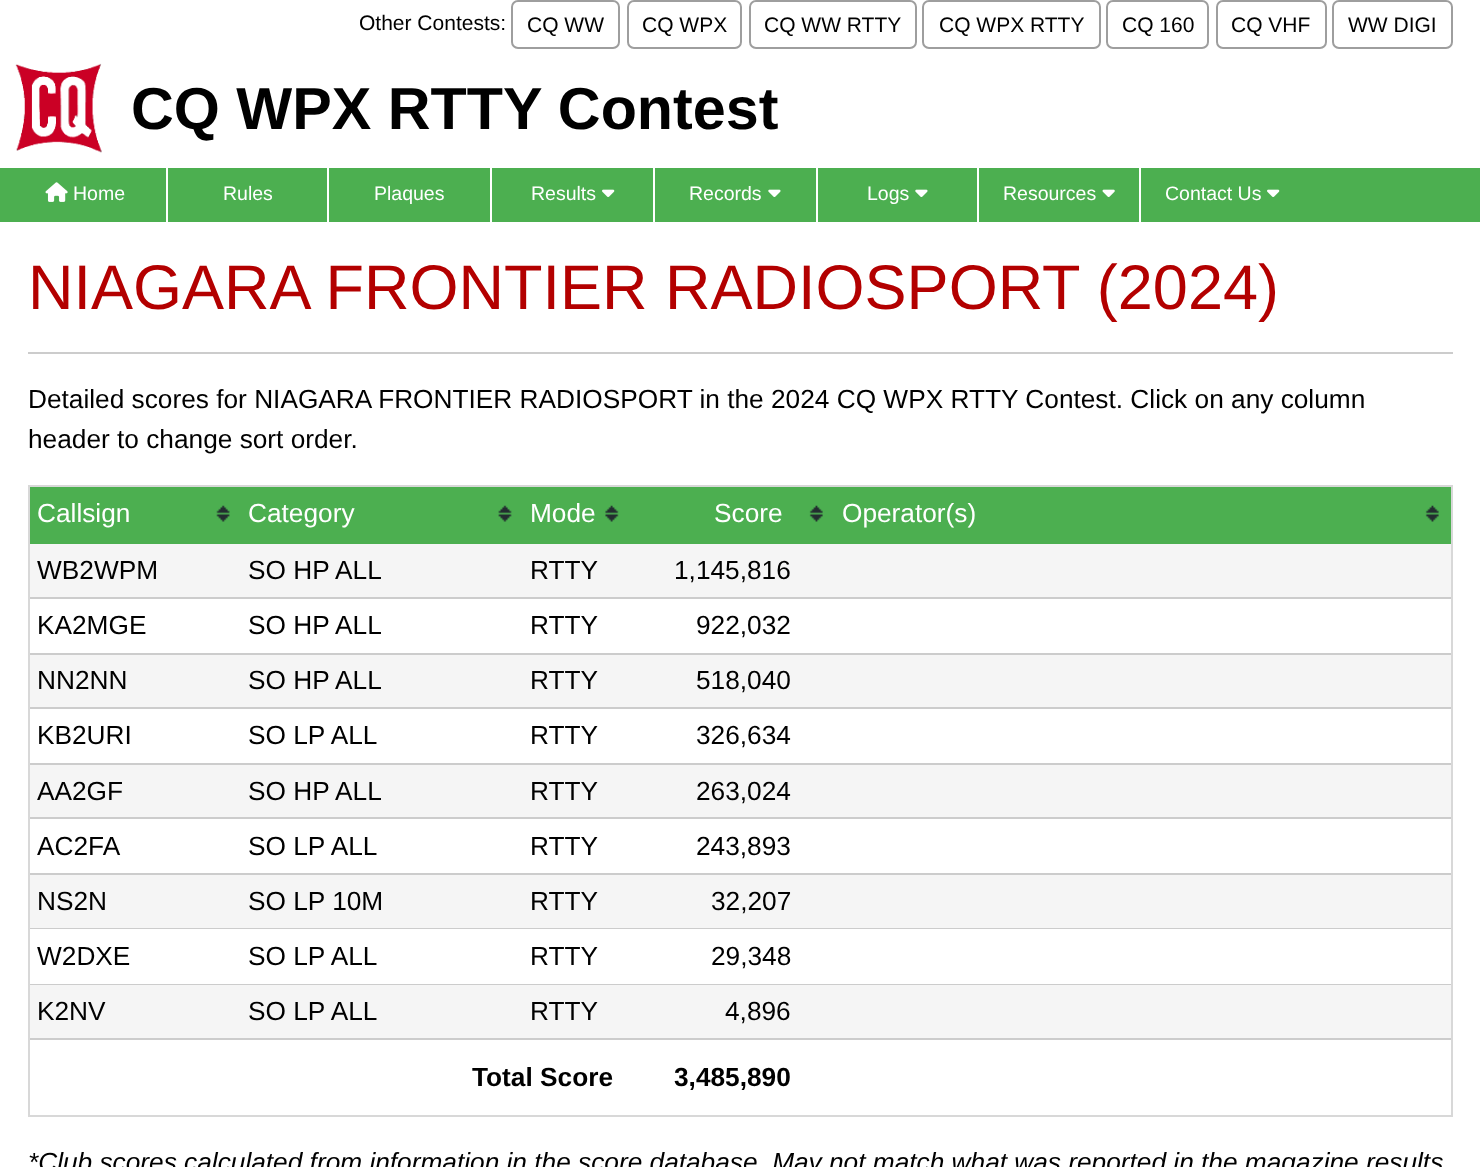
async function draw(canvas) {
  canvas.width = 1480;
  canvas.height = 1167;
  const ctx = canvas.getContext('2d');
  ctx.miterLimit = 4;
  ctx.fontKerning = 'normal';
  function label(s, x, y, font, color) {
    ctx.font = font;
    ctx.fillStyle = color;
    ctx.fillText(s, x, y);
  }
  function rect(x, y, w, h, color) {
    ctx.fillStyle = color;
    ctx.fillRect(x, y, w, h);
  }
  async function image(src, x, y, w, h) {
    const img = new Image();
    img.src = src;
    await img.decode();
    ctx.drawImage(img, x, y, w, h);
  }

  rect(0, 0, 1480, 1167, '#fff');
  label('Other Contests:', 359, 30, '21px Liberation Sans', '#000');
  ctx.beginPath();
  ctx.roundRect(512, 1, 107, 47, 6);
  ctx.strokeStyle = '#9e9e9e';
  ctx.lineWidth = 2;
  ctx.stroke();
  label('CQ WW', 527, 32, '21px Liberation Sans', '#000');
  ctx.beginPath();
  ctx.roundRect(628, 1, 113, 47, 6);
  ctx.stroke();
  label('CQ WPX', 642, 32, '21px Liberation Sans', '#000');
  ctx.beginPath();
  ctx.roundRect(750, 1, 166, 47, 6);
  ctx.stroke();
  label('CQ WW RTTY', 764, 32, '21px Liberation Sans', '#000');
  ctx.beginPath();
  ctx.roundRect(923, 1, 177, 47, 6);
  ctx.stroke();
  label('CQ WPX RTTY', 939, 32, '21px Liberation Sans', '#000');
  ctx.beginPath();
  ctx.roundRect(1107, 1, 101, 47, 6);
  ctx.stroke();
  label('CQ 160', 1122, 32, '21px Liberation Sans', '#000');
  ctx.beginPath();
  ctx.roundRect(1217, 1, 109, 47, 6);
  ctx.stroke();
  label('CQ VHF', 1231, 32, '21px Liberation Sans', '#000');
  ctx.beginPath();
  ctx.roundRect(1333, 1, 119, 47, 6);
  ctx.stroke();
  label('WW DIGI', 1348, 32, '21px Liberation Sans', '#000');
  await image('assets/img1.png', 15, 63, 87, 90);
  label('CQ WPX RTTY Contest', 131, 129, 'bold 59.25px Liberation Sans', '#000');
  rect(0, 168, 1480, 54, '#4caf50');
  rect(166, 168, 2, 54, '#fff');
  await image('assets/img2.png', 45, 182, 23, 20);
  label('Home', 73, 200, '19.5px Liberation Sans', '#fff');
  rect(327, 168, 2, 54, '#fff');
  label('Rules', 223, 200, '19.5px Liberation Sans', '#fff');
  rect(490, 168, 2, 54, '#fff');
  label('Plaques', 374, 200, '19.5px Liberation Sans', '#fff');
  rect(653, 168, 2, 54, '#fff');
  label('Results', 531, 200, '19.5px Liberation Sans', '#fff');
  await image('assets/img3.png', 602, 189, 13, 8);
  rect(816, 168, 2, 54, '#fff');
  label('Records', 689, 200, '19.5px Liberation Sans', '#fff');
  await image('assets/img4.png', 768, 189, 13, 8);
  rect(977, 168, 2, 54, '#fff');
  label('Logs', 867, 200, '19.5px Liberation Sans', '#fff');
  await image('assets/img4.png', 915, 189, 13, 8);
  rect(1139, 168, 2, 54, '#fff');
  label('Resources', 1003, 200, '19.5px Liberation Sans', '#fff');
  await image('assets/img5.png', 1102, 189, 13, 8);
  label('Contact Us', 1165, 200, '19.5px Liberation Sans', '#fff');
  await image('assets/img3.png', 1267, 189, 13, 8);
  rect(28, 352, 1425, 2, '#ccc');
  label('NIAGARA FRONTIER RADIOSPORT (2024)', 28, 309, '63px Liberation Sans', '#b30000');
  label('Detailed scores for NIAGARA FRONTIER RADIOSPORT in the 2024 CQ WPX RTTY Contest. Click on any column', 28, 408, '26.25px Liberation Sans', '#000');
  label('header to change sort order.', 28, 448, '26.25px Liberation Sans', '#000');
  ctx.strokeStyle = '#d8d8d8';
  ctx.strokeRect(29, 486, 1423, 630);
  rect(30, 487, 1421, 57, '#4caf50');
  await image('assets/img6.png', 216, 505, 14, 17);
  label('Callsign', 37, 522, '26.25px Liberation Sans', '#fff');
  await image('assets/img7.png', 498, 505, 14, 17);
  label('Category', 248, 522, '26.25px Liberation Sans', '#fff');
  await image('assets/img8.png', 605, 505, 14, 17);
  label('Mode', 530, 522, '26.25px Liberation Sans', '#fff');
  await image('assets/img9.png', 809, 505, 14, 17);
  label('Score', 714, 522, '26.25px Liberation Sans', '#fff');
  await image('assets/img9.png', 1425, 505, 14, 17);
  label('Operator(s)', 842, 522, '26.25px Liberation Sans', '#fff');
  rect(30, 544, 1421, 53, '#f5f5f5');
  rect(30, 597, 1421, 2, '#ccc');
  label('WB2WPM', 37, 579, '26.25px Liberation Sans', '#000');
  label('SO HP ALL', 248, 579, '26.25px Liberation Sans', '#000');
  label('RTTY', 530, 579, '26.25px Liberation Sans', '#000');
  label('1,145,816', 674, 579, '26.25px Liberation Sans', '#000');
  rect(30, 653, 1421, 2, '#ccc');
  label('KA2MGE', 37, 634, '26.25px Liberation Sans', '#000');
  label('SO HP ALL', 248, 634, '26.25px Liberation Sans', '#000');
  label('RTTY', 530, 634, '26.25px Liberation Sans', '#000');
  label('922,032', 696, 634, '26.25px Liberation Sans', '#000');
  rect(30, 655, 1421, 52, '#f5f5f5');
  rect(30, 707, 1421, 2, '#ccc');
  label('NN2NN', 37, 689, '26.25px Liberation Sans', '#000');
  label('SO HP ALL', 248, 689, '26.25px Liberation Sans', '#000');
  label('RTTY', 530, 689, '26.25px Liberation Sans', '#000');
  label('518,040', 696, 689, '26.25px Liberation Sans', '#000');
  rect(30, 763, 1421, 2, '#ccc');
  label('KB2URI', 37, 744, '26.25px Liberation Sans', '#000');
  label('SO LP ALL', 248, 744, '26.25px Liberation Sans', '#000');
  label('RTTY', 530, 744, '26.25px Liberation Sans', '#000');
  label('326,634', 696, 744, '26.25px Liberation Sans', '#000');
  rect(30, 765, 1421, 52, '#f5f5f5');
  rect(30, 817, 1421, 2, '#ccc');
  label('AA2GF', 37, 800, '26.25px Liberation Sans', '#000');
  label('SO HP ALL', 248, 800, '26.25px Liberation Sans', '#000');
  label('RTTY', 530, 800, '26.25px Liberation Sans', '#000');
  label('263,024', 696, 800, '26.25px Liberation Sans', '#000');
  rect(30, 873, 1421, 2, '#ccc');
  label('AC2FA', 37, 855, '26.25px Liberation Sans', '#000');
  label('SO LP ALL', 248, 855, '26.25px Liberation Sans', '#000');
  label('RTTY', 530, 855, '26.25px Liberation Sans', '#000');
  label('243,893', 696, 855, '26.25px Liberation Sans', '#000');
  rect(30, 875, 1421, 53, '#f5f5f5');
  rect(30, 928, 1421, 1, '#ccc');
  label('NS2N', 37, 910, '26.25px Liberation Sans', '#000');
  label('SO LP 10M', 248, 910, '26.25px Liberation Sans', '#000');
  label('RTTY', 530, 910, '26.25px Liberation Sans', '#000');
  label('32,207', 711, 910, '26.25px Liberation Sans', '#000');
  rect(30, 984, 1421, 1, '#ccc');
  label('W2DXE', 37, 965, '26.25px Liberation Sans', '#000');
  label('SO LP ALL', 248, 965, '26.25px Liberation Sans', '#000');
  label('RTTY', 530, 965, '26.25px Liberation Sans', '#000');
  label('29,348', 711, 965, '26.25px Liberation Sans', '#000');
  rect(30, 985, 1421, 53, '#f5f5f5');
  rect(30, 1038, 1421, 2, '#ccc');
  label('K2NV', 37, 1020, '26.25px Liberation Sans', '#000');
  label('SO LP ALL', 248, 1020, '26.25px Liberation Sans', '#000');
  label('RTTY', 530, 1020, '26.25px Liberation Sans', '#000');
  label('4,896', 725, 1020, '26.25px Liberation Sans', '#000');
  label('Total Score', 472, 1086, 'bold 26.25px Liberation Sans', '#000');
  label('3,485,890', 674, 1086, 'bold 26.25px Liberation Sans', '#000');
  label('*Club scores calculated from information in the score database. May not match what was reported in the magazine results', 28, 1171, 'italic 26.25px Liberation Sans', '#000');
}

draw(document.querySelector('canvas'));
